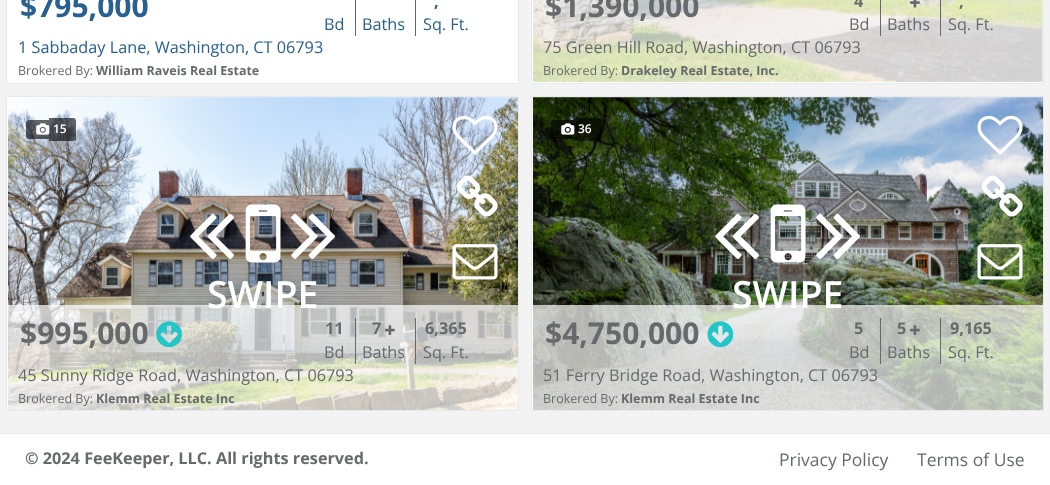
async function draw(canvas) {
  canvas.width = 1050;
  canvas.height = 485;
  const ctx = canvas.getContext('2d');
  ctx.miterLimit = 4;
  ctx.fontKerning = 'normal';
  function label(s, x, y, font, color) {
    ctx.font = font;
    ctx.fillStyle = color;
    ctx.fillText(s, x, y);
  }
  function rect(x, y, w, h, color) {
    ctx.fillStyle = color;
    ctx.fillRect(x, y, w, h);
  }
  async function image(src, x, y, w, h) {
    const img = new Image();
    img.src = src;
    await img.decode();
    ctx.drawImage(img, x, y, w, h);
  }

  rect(0, 0, 1050, 485, '#f3f3f4');
  ctx.fillStyle = '#fff';
  ctx.beginPath();
  ctx.rect(6.5, -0.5, 512, 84);
  ctx.fill();
  ctx.strokeStyle = '#e7eaec';
  ctx.stroke();
  label('$795,000', 20, 17, 'bold 30px Open Sans', '#286090');
  label('Bd', 324, 30, '16.25px Open Sans', '#286090');
  rect(355, 0, 1, 36, '#676a6c');
  label('Baths', 362, 30, '16.25px Open Sans', '#286090');
  rect(415, 0, 1, 36, '#676a6c');
  label(',', 434, 7, 'bold 16.25px Open Sans', '#286090');
  label('Sq. Ft.', 423, 30, '16.25px Open Sans', '#286090');
  label('1 Sabbaday Lane, Washington, CT 06793', 18, 53, '16.25px Open Sans', '#286090');
  label('Brokered By:', 18, 75, '12.5px Open Sans', '#676a6c');
  label('William Raveis Real Estate', 96, 75, 'bold 12.5px Open Sans', '#676a6c');
  ctx.fillStyle = '#fff';
  ctx.beginPath();
  ctx.rect(531.5, -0.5, 512, 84);
  ctx.fill();
  ctx.stroke();
  await image('assets/img1.png', 533, 0, 510, 82);
  label('$1,390,000', 545, 17, 'bold 30px Open Sans', '#676a6c');
  label('4', 854, 7, 'bold 16.25px Open Sans', '#676a6c');
  label('Bd', 849, 30, '16.25px Open Sans', '#676a6c');
  rect(880, 0, 1, 36, '#676a6c');
  await image('assets/img2.png', 910, 0, 10, 8);
  label('Baths', 887, 30, '16.25px Open Sans', '#676a6c');
  rect(940, 0, 1, 36, '#676a6c');
  label(',', 959, 7, 'bold 16.25px Open Sans', '#676a6c');
  label('Sq. Ft.', 948, 30, '16.25px Open Sans', '#676a6c');
  label('75 Green Hill Road, Washington, CT 06793', 543, 53, '16.25px Open Sans', '#676a6c');
  label('Brokered By:', 543, 75, '12.5px Open Sans', '#676a6c');
  label('Drakeley Real Estate, Inc.', 621, 75, 'bold 12.5px Open Sans', '#676a6c');
  ctx.fillStyle = '#fff';
  ctx.beginPath();
  ctx.rect(6.5, 96.5, 512, 314);
  ctx.fill();
  ctx.stroke();
  await image('assets/img3.png', 8, 97, 510, 313);
  ctx.fillStyle = '#00000099';
  ctx.beginPath();
  ctx.roundRect(26, 120, 23, 19, [3, 0, 0, 3]);
  ctx.fill();
  rect(49, 118, 4, 23, '#00000099');
  ctx.beginPath();
  ctx.roundRect(53, 118, 23, 23, [0, 3, 3, 0]);
  ctx.fill();
  await image('assets/img4.png', 36, 123, 14, 12);
  label('15', 53, 133, '600 12px Open Sans', '#fff');
  await image('assets/img5.png', 452, 115, 46, 40);
  await image('assets/img6.png', 456, 175, 42, 42);
  await image('assets/img7.png', 452, 244, 46, 36);
  await image('assets/img8.png', 190, 213, 44, 46);
  await image('assets/img9.png', 245, 204, 36, 59);
  await image('assets/img10.png', 291, 213, 44, 46);
  rect(8, 305, 510, 105, '#ffffffb3');
  label('SWIPE', 207, 308, '600 37.5px Open Sans', '#fff');
  label('$995,000', 20, 344, 'bold 30px Open Sans', '#676a6c');
  await image('assets/img11.png', 156, 321, 26, 27);
  label('11', 325, 334, 'bold 16.25px Open Sans', '#676a6c');
  label('Bd', 324, 358, '16.25px Open Sans', '#676a6c');
  rect(355, 318, 1, 46, '#676a6c');
  label('7', 372, 334, 'bold 16.25px Open Sans', '#676a6c');
  await image('assets/img12.png', 385, 325, 10, 10);
  label('Baths', 362, 358, '16.25px Open Sans', '#676a6c');
  rect(415, 318, 1, 46, '#676a6c');
  label('6,365', 425, 334, 'bold 16.25px Open Sans', '#676a6c');
  label('Sq. Ft.', 423, 358, '16.25px Open Sans', '#676a6c');
  label('45 Sunny Ridge Road, Washington, CT 06793', 18, 381, '16.25px Open Sans', '#676a6c');
  label('Brokered By:', 18, 403, '12.5px Open Sans', '#676a6c');
  label('Klemm Real Estate Inc', 96, 403, 'bold 12.5px Open Sans', '#676a6c');
  ctx.fillStyle = '#fff';
  ctx.beginPath();
  ctx.rect(531.5, 96.5, 512, 314);
  ctx.fill();
  ctx.stroke();
  await image('assets/img13.png', 533, 97, 510, 313);
  ctx.fillStyle = '#00000099';
  ctx.beginPath();
  ctx.roundRect(551, 120, 23, 19, [3, 0, 0, 3]);
  ctx.fill();
  rect(574, 118, 4, 23, '#00000099');
  ctx.beginPath();
  ctx.roundRect(578, 118, 23, 23, [0, 3, 3, 0]);
  ctx.fill();
  await image('assets/img14.png', 561, 123, 14, 12);
  label('36', 578, 133, '600 12px Open Sans', '#fff');
  await image('assets/img15.png', 977, 115, 46, 40);
  await image('assets/img16.png', 981, 175, 42, 42);
  await image('assets/img17.png', 977, 244, 46, 36);
  await image('assets/img18.png', 715, 213, 44, 46);
  await image('assets/img19.png', 770, 204, 36, 59);
  await image('assets/img20.png', 816, 213, 44, 46);
  rect(533, 305, 510, 105, '#ffffffb3');
  label('SWIPE', 732, 308, '600 37.5px Open Sans', '#fff');
  label('$4,750,000', 545, 344, 'bold 30px Open Sans', '#676a6c');
  await image('assets/img21.png', 707, 321, 27, 27);
  label('5', 854, 334, 'bold 16.25px Open Sans', '#676a6c');
  label('Bd', 849, 358, '16.25px Open Sans', '#676a6c');
  rect(880, 318, 1, 46, '#676a6c');
  label('5', 897, 334, 'bold 16.25px Open Sans', '#676a6c');
  await image('assets/img22.png', 910, 325, 10, 10);
  label('Baths', 887, 358, '16.25px Open Sans', '#676a6c');
  rect(940, 318, 1, 46, '#676a6c');
  label('9,165', 950, 334, 'bold 16.25px Open Sans', '#676a6c');
  label('Sq. Ft.', 948, 358, '16.25px Open Sans', '#676a6c');
  label('51 Ferry Bridge Road, Washington, CT 06793', 543, 381, '16.25px Open Sans', '#676a6c');
  label('Brokered By:', 543, 403, '12.5px Open Sans', '#676a6c');
  label('Klemm Real Estate Inc', 621, 403, 'bold 12.5px Open Sans', '#676a6c');
  rect(0, 434, 1050, 51, '#fff');
  rect(0, 433, 1050, 1, '#e7eaec');
  label('© 2024 FeeKeeper, LLC. All rights reserved.', 25, 464, 'bold 16.25px Open Sans', '#676a6c');
  label('Privacy Policy', 779, 466, '17.5px Open Sans', '#676a6c');
  label('Terms of Use', 917, 466, '17.5px Open Sans', '#676a6c');
}

draw(document.querySelector('canvas'));
